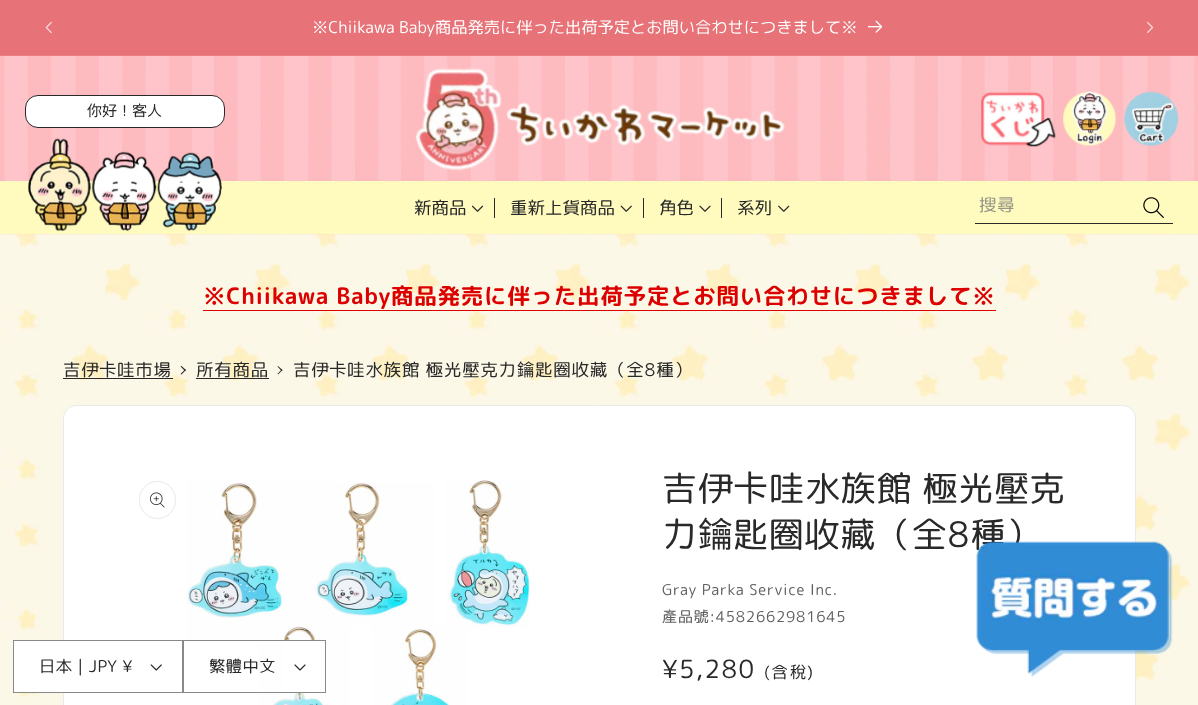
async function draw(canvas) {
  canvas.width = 1198;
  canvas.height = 705;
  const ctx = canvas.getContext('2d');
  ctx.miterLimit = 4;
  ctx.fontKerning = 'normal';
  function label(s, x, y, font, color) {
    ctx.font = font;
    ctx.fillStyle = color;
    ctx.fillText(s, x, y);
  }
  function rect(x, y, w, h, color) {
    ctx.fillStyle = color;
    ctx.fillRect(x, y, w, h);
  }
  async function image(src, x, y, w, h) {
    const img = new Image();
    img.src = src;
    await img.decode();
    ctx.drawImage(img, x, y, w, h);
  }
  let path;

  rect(0, 0, 1198, 705, '#fff');
  await image('assets/img1.png', 0, 234, 1198, 471);
  rect(0, 0, 1198, 55, '#e77277');
  rect(0, 55, 1198, 1, '#e97d82');
  await image('assets/img2.png', 45, 21, 7, 12);
  label('※Chiikawa Baby商品発売に伴った出荷予定とお問い合わせにつきまして※', 312, 33, '16.25px "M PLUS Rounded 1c"', '#fff');
  await image('assets/img3.png', 868, 20, 15, 13);
  await image('assets/img4.png', 1147, 22, 6, 11);
  await image('assets/img5.png', 0, 56, 1198, 179);
  ctx.beginPath();
  ctx.roundRect(25.5, 95.5, 199, 32, 12.5);
  ctx.fill();
  ctx.strokeStyle = '#292929';
  ctx.stroke();
  label('你', 87, 116, '15px Noto Sans CJK TC', '#292929');
  label('好！客人', 102, 116, '15px "M PLUS Rounded 1c"', '#292929');
  rect(0, 181, 1198, 53, '#fffbbf');
  await image('assets/img6.png', 28, 138, 194, 93);
  await image('assets/img7.png', 415, 68, 370, 103);
  await image('assets/img8.png', 981, 92, 75, 55);
  await image('assets/img9.png', 1063, 91, 54, 55);
  await image('assets/img10.png', 1124, 91, 55, 56);
  label('新商品', 414, 214, '17.5px "M PLUS Rounded 1c"', '#292929');
  await image('assets/img11.png', 471, 205, 13, 7);
  rect(494, 198, 1, 20, '#292929');
  label('重新上貨商品', 510, 214, '17.5px "M PLUS Rounded 1c"', '#292929');
  await image('assets/img12.png', 620, 205, 12, 7);
  rect(643, 198, 1, 20, '#292929');
  label('角色', 659, 214, '17.5px "M PLUS Rounded 1c"', '#292929');
  await image('assets/img13.png', 699, 205, 12, 7);
  rect(721, 198, 1, 20, '#292929');
  label('系列', 737, 214, '17.5px "M PLUS Rounded 1c"', '#292929');
  await image('assets/img14.png', 778, 205, 12, 7);
  rect(975, 223, 198, 1, '#292929');
  ctx.letterSpacing = '0.5px';
  label('搜尋', 979, 211, '17.5px "M PLUS Rounded 1c"', '#989788');
  await image('assets/img15.png', 1143, 197, 21, 21);
  ctx.letterSpacing = '0.75px';
  label('※Chiikawa Baby商品発売に伴った出荷予定とお問い合わせにつきまして※', 203, 304, 'bold 22.5px "M PLUS Rounded 1c"', '#d00');
  rect(203, 310, 793, 1, '#d00');
  label('吉伊', 63, 376, '17.5px "M PLUS Rounded 1c"', '#292929');
  rect(63, 378, 110, 1, '#292929');
  label('卡', 99, 376, '17.5px Noto Sans CJK TC', '#292929');
  label('哇市場', 117, 376, '17.5px "M PLUS Rounded 1c"', '#292929');
  path = new Path2D('M180.5 366.5L181.5 366L186 370L185 371Z');
  ctx.fill(path);
  path = new Path2D('M180.5 374L185 369.5L186 370L181.5 374.5Z');
  ctx.fill(path);
  label('所有商品', 196, 376, '17.5px "M PLUS Rounded 1c"', '#292929');
  rect(196, 378, 73, 1, '#292929');
  path = new Path2D('M277.5 366.5L278 366L282.5 370L281.5 371Z');
  ctx.fill(path);
  path = new Path2D('M277.5 374L281.5 369.5L282.5 370L278 374.5Z');
  ctx.fill(path);
  label('吉伊', 293, 376, '17.5px "M PLUS Rounded 1c"', '#292929');
  label('卡', 329, 376, '17.5px Noto Sans CJK TC', '#292929');
  label('哇水族館 極光壓克力', 347, 376, '17.5px "M PLUS Rounded 1c"', '#292929');
  label('鑰', 517, 376, '17.5px Noto Sans CJK TC', '#292929');
  label('匙圈收藏（全8種）', 535, 376, '17.5px "M PLUS Rounded 1c"', '#292929');
  ctx.fillStyle = '#fff';
  ctx.beginPath();
  ctx.roundRect(63.5, 405.5, 1072, 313, 12.5);
  ctx.fill();
  ctx.strokeStyle = '#eaeaea';
  ctx.stroke();
  ctx.beginPath();
  ctx.roundRect(139.5, 481.5, 36, 37, 18);
  ctx.stroke();
  await image('assets/img16.png', 150, 492, 15, 16);
  await image('assets/img17.png', 186, 480, 344, 225);
  label('吉伊', 662, 501, '35px "M PLUS Rounded 1c"', '#292929');
  label('卡', 733, 501, '35px Noto Sans CJK TC', '#292929');
  label('哇水族館 極光壓克', 769, 501, '35px "M PLUS Rounded 1c"', '#292929');
  label('力', 662, 547, '35px "M PLUS Rounded 1c"', '#292929');
  label('鑰', 698, 547, '35px Noto Sans CJK TC', '#292929');
  label('匙圈收藏（全8種）', 733, 547, '35px "M PLUS Rounded 1c"', '#292929');
  label('Gray Parka Service Inc.', 662, 595, '15px "M PLUS Rounded 1c"', '#5f5f5f');
  label('產', 662, 622, '15px Noto Sans CJK TC', '#5f5f5f');
  label('品號:4582662981645', 678, 622, '15px "M PLUS Rounded 1c"', '#5f5f5f');
  ctx.letterSpacing = '1.5px';
  label('¥5,280', 662, 678, '25px "M PLUS Rounded 1c"', '#292929');
  label('(含', 764, 678, '16.25px "M PLUS Rounded 1c"', '#292929');
  label('稅', 790, 678, '16.25px Noto Sans CJK TC', '#292929');
  label(')', 807, 678, '16.25px "M PLUS Rounded 1c"', '#292929');
  await image('assets/img18.png', 976, 541, 197, 136);
  rect(14, 641, 50, 51, '#fff');
  await image('assets/img19.png', 150, 664, 12, 7);
  ctx.strokeStyle = '#898989';
  ctx.strokeRect(13.5, 640.5, 169, 52);
  ctx.letterSpacing = '0.5px';
  label('日本 | JPY ¥', 39, 672, '16.25px "M PLUS Rounded 1c"', '#292929');
  rect(283, 641, 36, 51, '#fff');
  await image('assets/img20.png', 294, 664, 12, 7);
  ctx.strokeRect(183.5, 640.5, 142, 52);
  label('繁體中文', 209, 672, '16.25px "M PLUS Rounded 1c"', '#292929');
}

draw(document.querySelector('canvas'));
